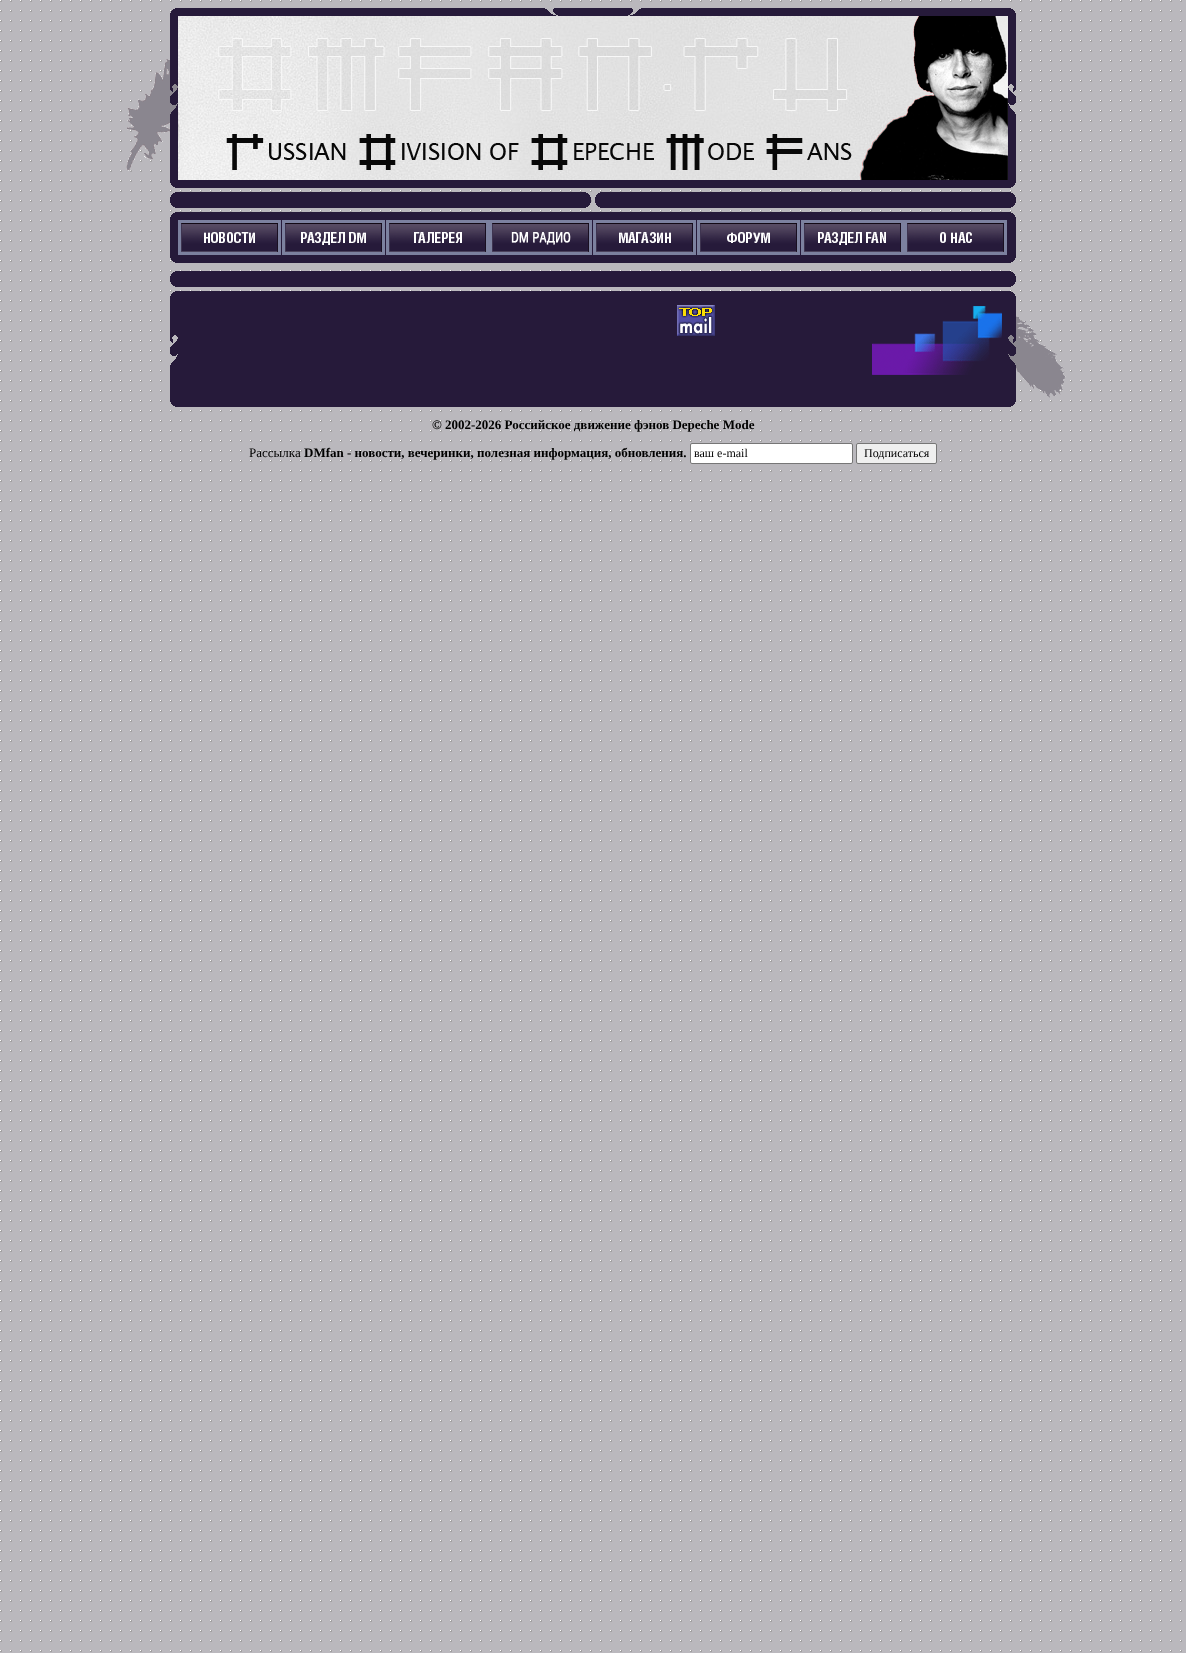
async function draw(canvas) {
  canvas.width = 1186;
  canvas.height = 1653;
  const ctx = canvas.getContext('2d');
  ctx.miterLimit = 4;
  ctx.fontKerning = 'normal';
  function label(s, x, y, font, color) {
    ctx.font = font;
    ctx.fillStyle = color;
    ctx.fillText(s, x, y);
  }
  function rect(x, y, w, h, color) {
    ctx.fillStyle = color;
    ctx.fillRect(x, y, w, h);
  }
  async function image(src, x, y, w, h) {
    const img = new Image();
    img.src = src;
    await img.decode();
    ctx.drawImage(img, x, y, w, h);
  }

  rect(0, 0, 1186, 1653, '#bab8bd');
  await image('assets/img1.png', 0, 0, 1182, 1652);
  await image('assets/img2.png', 170, 8, 8, 8);
  rect(178, 8, 830, 8, '#261a3a');
  await image('assets/img3.png', 545, 8, 13, 8);
  await image('assets/img4.png', 628, 8, 13, 8);
  await image('assets/img5.png', 1008, 8, 8, 8);
  await image('assets/img6.png', 126, 59, 44, 112);
  rect(170, 16, 8, 164, '#261a3a');
  await image('assets/img7.png', 170, 84, 8, 30);
  await image('assets/img8.png', 178, 16, 830, 164);
  rect(1008, 16, 8, 164, '#261a3a');
  await image('assets/img9.png', 1008, 84, 8, 30);
  await image('assets/img10.png', 170, 180, 8, 8);
  rect(178, 180, 830, 8, '#261a3a');
  await image('assets/img11.png', 1008, 180, 8, 8);
  await image('assets/img12.png', 170, 192, 8, 8);
  rect(178, 192, 405, 16, '#261a3a');
  await image('assets/img5.png', 583, 192, 8, 8);
  await image('assets/img12.png', 595, 192, 8, 8);
  rect(603, 192, 405, 16, '#261a3a');
  await image('assets/img5.png', 1008, 192, 8, 8);
  await image('assets/img10.png', 170, 200, 8, 8);
  await image('assets/img11.png', 583, 200, 8, 8);
  await image('assets/img10.png', 595, 200, 8, 8);
  await image('assets/img11.png', 1008, 200, 8, 8);
  await image('assets/img12.png', 170, 212, 8, 8);
  rect(178, 212, 830, 8, '#261a3a');
  await image('assets/img5.png', 1008, 212, 8, 8);
  rect(170, 220, 8, 35, '#261a3a');
  rect(281, 220, 1, 35, '#261a3a');
  await image('assets/img13.png', 178, 220, 103, 35);
  rect(385, 220, 1, 35, '#261a3a');
  await image('assets/img14.png', 282, 220, 103, 35);
  await image('assets/img15.png', 386, 220, 103, 35);
  rect(592, 220, 1, 35, '#261a3a');
  await image('assets/img16.png', 489, 220, 103, 35);
  rect(696, 220, 1, 35, '#261a3a');
  await image('assets/img17.png', 593, 220, 103, 35);
  rect(800, 220, 1, 35, '#261a3a');
  await image('assets/img18.png', 697, 220, 103, 35);
  await image('assets/img19.png', 801, 220, 103, 35);
  rect(1007, 220, 9, 35, '#261a3a');
  await image('assets/img20.png', 904, 220, 103, 35);
  await image('assets/img21.png', 170, 255, 8, 8);
  rect(178, 255, 830, 8, '#261a3a');
  await image('assets/img11.png', 1008, 255, 8, 8);
  await image('assets/img22.png', 170, 271, 8, 8);
  rect(178, 271, 830, 16, '#261a3a');
  await image('assets/img23.png', 1008, 271, 8, 8);
  await image('assets/img10.png', 170, 279, 8, 8);
  await image('assets/img11.png', 1008, 279, 8, 8);
  await image('assets/img22.png', 170, 291, 8, 8);
  rect(178, 291, 830, 8, '#261a3a');
  await image('assets/img23.png', 1008, 291, 8, 8);
  rect(170, 299, 8, 100, '#261a3a');
  await image('assets/img24.png', 170, 335, 8, 30);
  rect(178, 299, 838, 100, '#261a3a');
  await image('assets/img25.png', 1008, 335, 8, 30);
  await image('assets/img26.png', 1016, 316, 50, 82);
  await image('assets/img27.png', 677, 305, 38, 31);
  await image('assets/img28.png', 872, 306, 130, 69);
  await image('assets/img10.png', 170, 399, 8, 8);
  rect(178, 399, 830, 8, '#261a3a');
  await image('assets/img11.png', 1008, 399, 8, 8);
  label('© 2002-2026 Российское движение фэнов Depeche Mode', 432, 429, 'bold 13px Liberation Serif', '#000');
  label('Рассылка', 249, 457, '13px Liberation Serif', '#000');
  label('DMfan - новости, вечеринки, полезная информация, обновления.', 304, 457, 'bold 13px Liberation Serif', '#000');
  ctx.fillStyle = '#fff';
  ctx.beginPath();
  ctx.roundRect(690.5, 443.5, 162, 20, 1.5);
  ctx.fill();
  ctx.strokeStyle = '#767676';
  ctx.stroke();
  label('ваш e-mail', 694, 457, '12px Liberation Serif', '#000');
  ctx.fillStyle = '#efefef';
  ctx.beginPath();
  ctx.roundRect(856.5, 443.5, 80, 20, 1.5);
  ctx.fill();
  ctx.stroke();
  label('Подписаться', 864, 457, '12px Liberation Serif', '#000');
}

draw(document.querySelector('canvas'));
